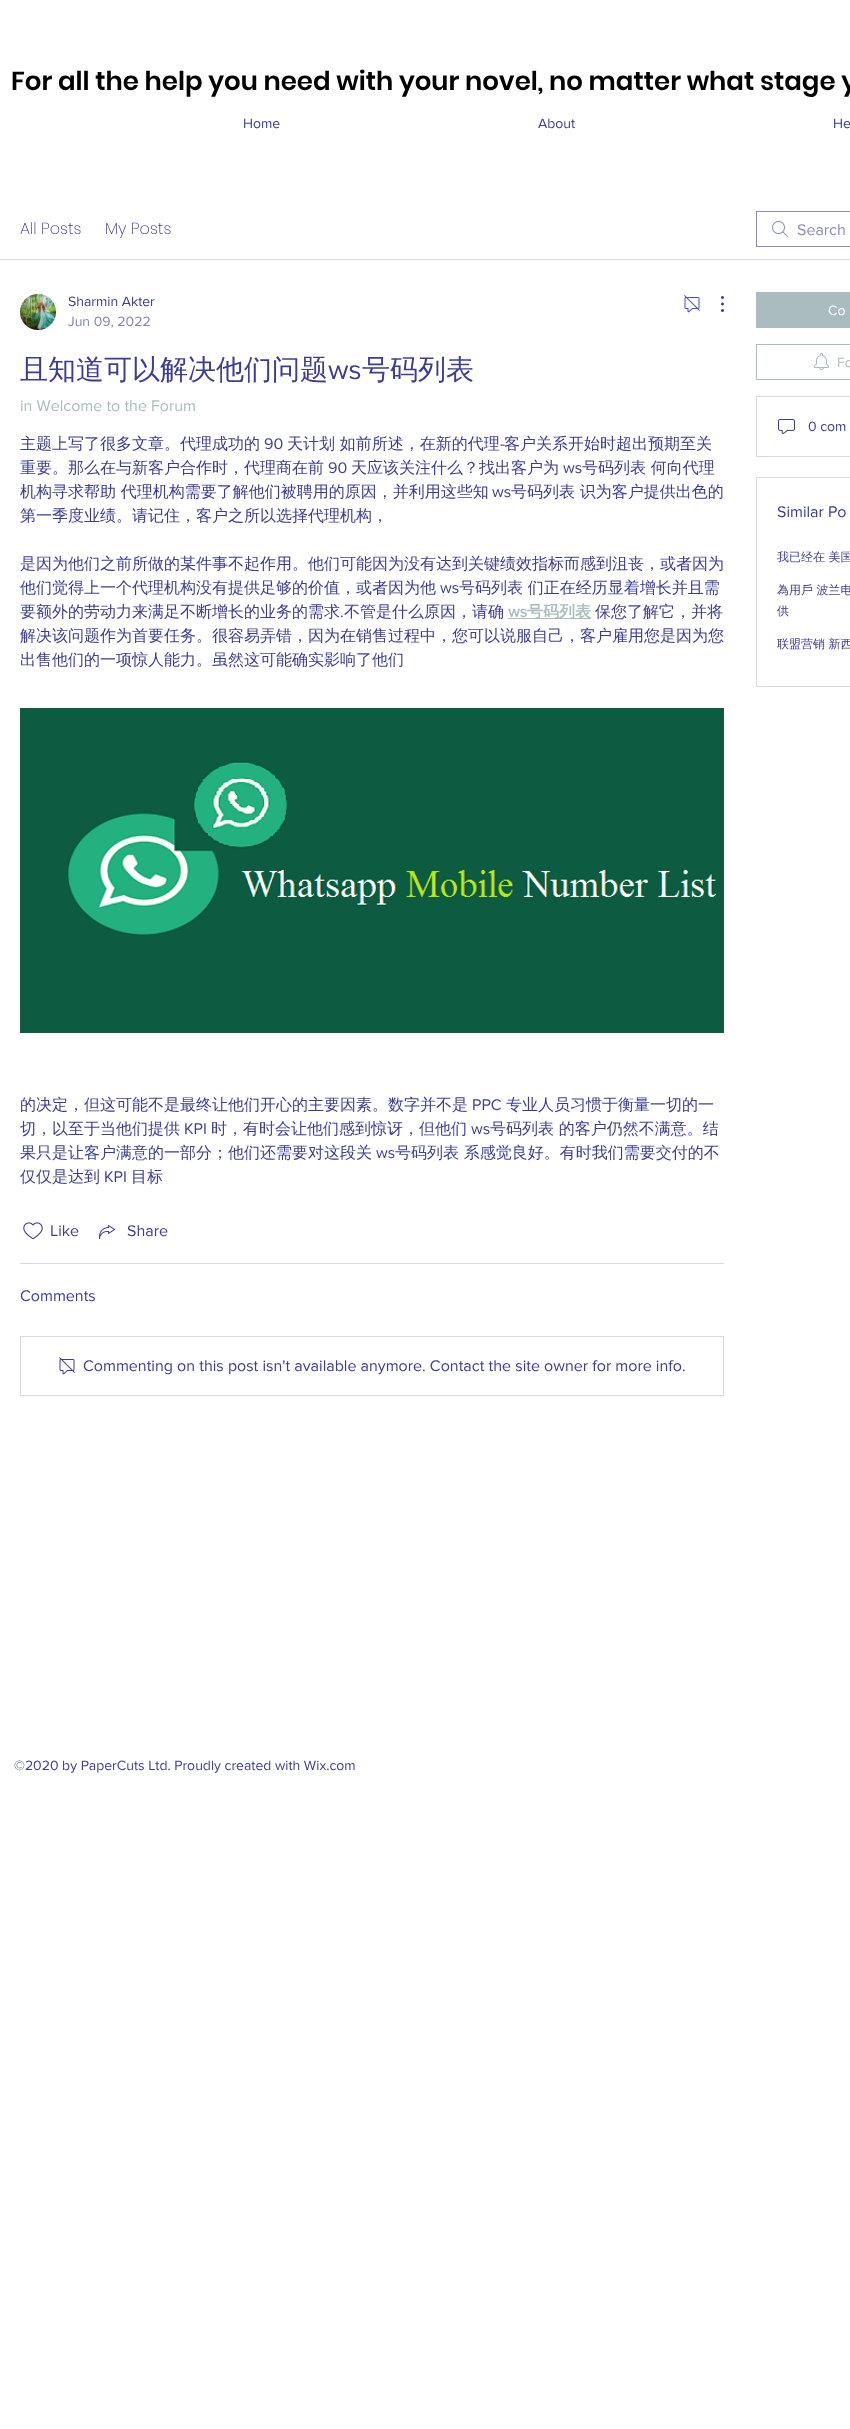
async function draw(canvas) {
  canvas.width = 850;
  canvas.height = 2429;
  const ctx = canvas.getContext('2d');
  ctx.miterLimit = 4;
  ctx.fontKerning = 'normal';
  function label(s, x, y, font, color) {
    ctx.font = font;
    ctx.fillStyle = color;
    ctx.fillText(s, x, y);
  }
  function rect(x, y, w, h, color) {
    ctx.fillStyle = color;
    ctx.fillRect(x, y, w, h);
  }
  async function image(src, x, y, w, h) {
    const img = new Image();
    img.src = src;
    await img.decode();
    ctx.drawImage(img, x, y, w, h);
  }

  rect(0, 0, 850, 2429, '#fff');
  label('For all the help you need with your novel, no matter what stage y', 11, 90, '600 26px Poppins', '#000');
  label('Home', 243, 128, '14px "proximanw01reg"', '#3c3c94');
  label('About', 538, 128, '14px "proximanw01reg"', '#3c3c94');
  label('He', 833, 128, '14px "proximanw01reg"', '#3c3c94');
  rect(0, 259, 850, 1, '#d8d8ea');
  label('All Posts', 20, 234, '200 16px Poppins', '#3c3c94');
  label('My Posts', 105, 234, '200 16px Poppins', '#3c3c94');
  await image('assets/img1.png', 772, 221, 16, 16);
  ctx.strokeStyle = '#8a8abf';
  ctx.strokeRect(756.5, 211.5, 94, 35);
  label('Search', 797, 235, '16px "proximanw01reg"', '#8a8abf');
  await image('assets/img2.png', 20, 294, 36, 36);
  label('Sharmin Akter', 68, 306, '14px "proximanw01reg"', '#3c3c94');
  label('Jun 09, 2022', 68, 326, '14px "proximanw01reg"', '#8282bb');
  await image('assets/img3.png', 684, 295, 16, 18);
  await image('assets/img4.png', 721, 296, 3, 16);
  label('且知道可以解决他们问题', 20, 379, '500 28px WenQuanYi Zen Hei', '#3c3c94');
  label('ws', 328, 379, '28px "proximanw01reg"', '#3c3c94');
  label('号码列表', 362, 379, '500 28px WenQuanYi Zen Hei', '#3c3c94');
  label('in Welcome to the Forum', 20, 411, '16px "proximanw01reg"', '#aabcbf');
  label('主题上写了很多文章。代理成功的', 20, 449, '500 16px WenQuanYi Zen Hei', '#3c3c94');
  label('90', 264, 449, '16px "proximanw01reg"', '#3c3c94');
  label('天计划 如前所述，在新的代理', 287, 449, '500 16px WenQuanYi Zen Hei', '#3c3c94');
  label('-', 500, 449, '16px "proximanw01reg"', '#3c3c94');
  label('客户关系开始时超出预期至关', 504, 449, '500 16px WenQuanYi Zen Hei', '#3c3c94');
  label('重要。那么在与新客户合作时，代理商在前', 20, 473, '500 16px WenQuanYi Zen Hei', '#3c3c94');
  label('90', 328, 473, '16px "proximanw01reg"', '#3c3c94');
  label('天应该关注什么？找出客户为', 351, 473, '500 16px WenQuanYi Zen Hei', '#3c3c94');
  label('ws', 563, 473, '16px "proximanw01reg"', '#3c3c94');
  label('号码列表 何向代理', 582, 473, '500 16px WenQuanYi Zen Hei', '#3c3c94');
  label('机构寻求帮助 代理机构需要了解他们被聘用的原因，并利用这些知', 20, 497, '500 16px WenQuanYi Zen Hei', '#3c3c94');
  label('ws', 492, 497, '16px "proximanw01reg"', '#3c3c94');
  label('号码列表 识为客户提供出色的', 511, 497, '500 16px WenQuanYi Zen Hei', '#3c3c94');
  label('第一季度业绩。请记住，客户之所以选择代理机构，', 20, 521, '500 16px WenQuanYi Zen Hei', '#3c3c94');
  label('是因为他们之前所做的某件事不起作用。他们可能因为没有达到关键绩效指标而感到沮丧，或者因为', 20, 569, '500 16px WenQuanYi Zen Hei', '#3c3c94');
  label('他们觉得上一个代理机构没有提供足够的价值，或者因为他', 20, 593, '500 16px WenQuanYi Zen Hei', '#3c3c94');
  label('ws', 440, 593, '16px "proximanw01reg"', '#3c3c94');
  label('号码列表 们正在经历显着增长并且需', 459, 593, '500 16px WenQuanYi Zen Hei', '#3c3c94');
  label('要额外的劳动力来满足不断增长的业务的需求', 20, 617, '500 16px WenQuanYi Zen Hei', '#3c3c94');
  label('.', 340, 617, '16px "proximanw01reg"', '#3c3c94');
  label('不管是什么原因，请确', 344, 617, '500 16px WenQuanYi Zen Hei', '#3c3c94');
  label('ws', 508, 617, 'bold 16px "proximanw01reg"', '#aabcbf');
  rect(508, 618, 83, 1, '#aabcbf');
  label('号码列表', 527, 617, 'bold 16px WenQuanYi Zen Hei', '#aabcbf');
  label('保您了解它，并将', 595, 617, '500 16px WenQuanYi Zen Hei', '#3c3c94');
  label('解决该问题作为首要任务。很容易弄错，因为在销售过程中，您可以说服自己，客户雇用您是因为您', 20, 641, '500 16px WenQuanYi Zen Hei', '#3c3c94');
  label('出售他们的一项惊人能力。虽然这可能确实影响了他们', 20, 665, '500 16px WenQuanYi Zen Hei', '#3c3c94');
  await image('assets/img5.png', 20, 708, 704, 325);
  label('的决定，但这可能不是最终让他们开心的主要因素。数字并不是', 20, 1110, '500 16px WenQuanYi Zen Hei', '#3c3c94');
  label('PPC', 472, 1110, '16px "proximanw01reg"', '#3c3c94');
  label('专业人员习惯于衡量一切的一', 506, 1110, '500 16px WenQuanYi Zen Hei', '#3c3c94');
  label('切，以至于当他们提供', 20, 1134, '500 16px WenQuanYi Zen Hei', '#3c3c94');
  label('KPI', 184, 1134, '16px "proximanw01reg"', '#3c3c94');
  label('时，有时会让他们感到惊讶，但他们', 211, 1134, '500 16px WenQuanYi Zen Hei', '#3c3c94');
  label('ws', 471, 1134, '16px "proximanw01reg"', '#3c3c94');
  label('号码列表 的客户仍然不满意。结', 490, 1134, '500 16px WenQuanYi Zen Hei', '#3c3c94');
  label('果只是让客户满意的一部分；他们还需要对这段关', 20, 1158, '500 16px WenQuanYi Zen Hei', '#3c3c94');
  label('ws', 376, 1158, '16px "proximanw01reg"', '#3c3c94');
  label('号码列表 系感觉良好。有时我们需要交付的不', 395, 1158, '500 16px WenQuanYi Zen Hei', '#3c3c94');
  label('仅仅是达到', 20, 1182, '500 16px WenQuanYi Zen Hei', '#3c3c94');
  label('KPI', 104, 1182, '16px "proximanw01reg"', '#3c3c94');
  label('目标', 131, 1182, '500 16px WenQuanYi Zen Hei', '#3c3c94');
  await image('assets/img6.png', 23, 1222, 20, 18);
  label('Like', 50, 1236, '16px "proximanw01reg"', '#3c3c94');
  await image('assets/img7.png', 99, 1225, 16, 14);
  label('Share', 127, 1236, '16px "proximanw01reg"', '#3c3c94');
  rect(20, 1263, 704, 1, '#d8d8ea');
  label('Comments', 20, 1301, '16px "proximanw01reg"', '#3c3c94');
  ctx.strokeStyle = '#d8d8ea';
  ctx.strokeRect(20.5, 1336.5, 703, 59);
  await image('assets/img8.png', 59, 1357, 16, 18);
  label('Commenting on this post isn\'t available anymore. Contact the site owner for more info.', 83, 1371, '16px "proximanw01reg"', '#3c3c94');
  rect(756, 292, 94, 36, '#aabcbf');
  label('Co', 828, 315, '14px "proximanw01reg"', '#fff');
  ctx.strokeStyle = '#aabcbf';
  ctx.strokeRect(756.5, 344.5, 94, 35);
  await image('assets/img9.png', 814, 353, 15, 17);
  label('Fo', 837, 367, '14px "proximanw01reg"', '#aabcbf');
  ctx.strokeStyle = '#d8d8ea';
  ctx.strokeRect(756.5, 396.5, 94, 60);
  await image('assets/img10.png', 778, 419, 17, 15);
  label('0 com', 808, 431, '14px "proximanw01reg"', '#3c3c94');
  ctx.strokeRect(756.5, 477.5, 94, 209);
  label('Similar Po', 777, 517, '16px "proximanw01reg"', '#3c3c94');
  label('我已经在 美国', 777, 561, '500 12px WenQuanYi Zen Hei', '#3c3c94');
  label('為用戶 波兰电', 777, 594, '500 12px WenQuanYi Zen Hei', '#3c3c94');
  label('供', 777, 615, '500 12px WenQuanYi Zen Hei', '#3c3c94');
  label('联盟营销 新西', 777, 648, '500 12px WenQuanYi Zen Hei', '#3c3c94');
  label('©2020 by PaperCuts Ltd. Proudly created with Wix.com', 14, 1770, '14px "proximanw01reg"', '#3c3c94');
}

draw(document.querySelector('canvas'));
